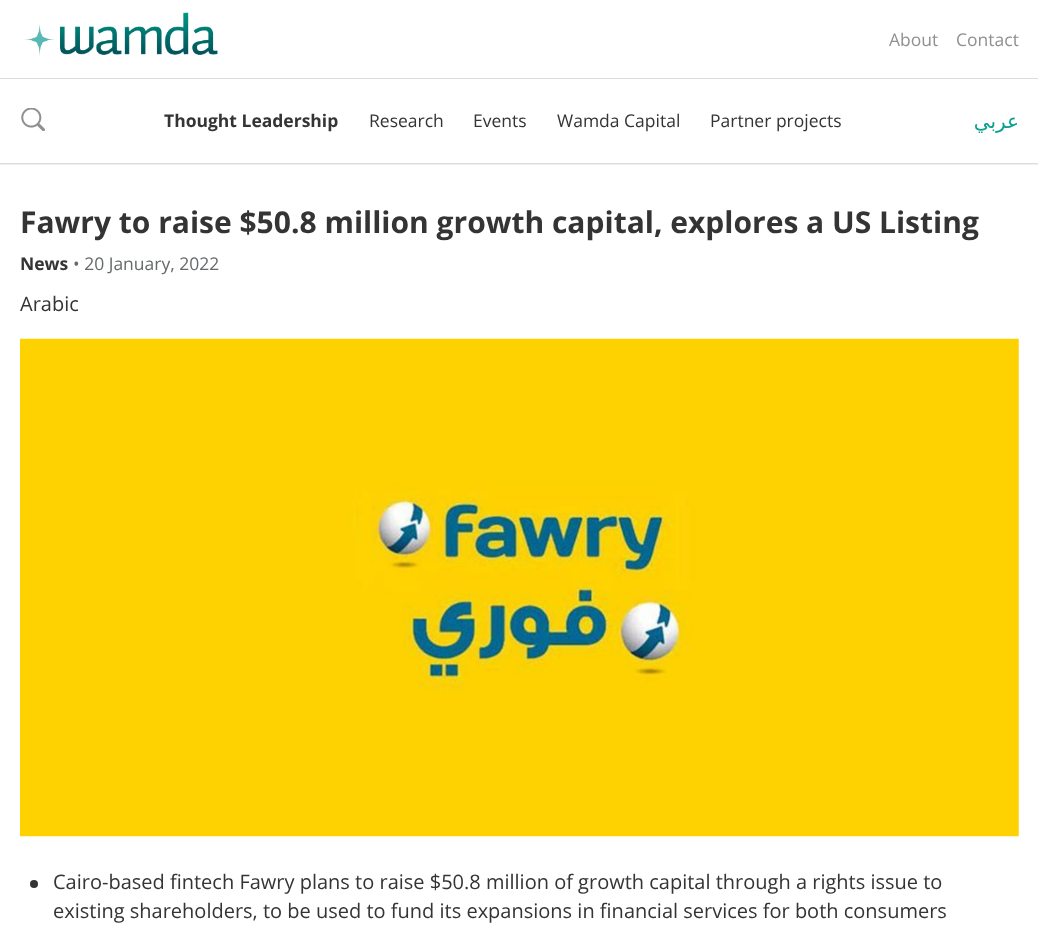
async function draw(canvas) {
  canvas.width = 1038;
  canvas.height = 927;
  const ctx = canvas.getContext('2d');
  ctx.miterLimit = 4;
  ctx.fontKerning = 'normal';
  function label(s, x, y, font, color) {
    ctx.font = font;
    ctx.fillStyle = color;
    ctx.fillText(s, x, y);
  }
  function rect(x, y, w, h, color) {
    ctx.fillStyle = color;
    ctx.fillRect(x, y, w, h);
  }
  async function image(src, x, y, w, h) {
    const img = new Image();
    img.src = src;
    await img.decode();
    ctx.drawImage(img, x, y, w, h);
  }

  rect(0, 0, 1038, 927, '#fff');
  rect(0, 164, 1038, 1, '#eee');
  await image('assets/img1.png', 23, 12, 195, 44);
  label('About', 889, 46, '17.5px Open Sans', '#8e9091');
  label('Contact', 956, 46, '17.5px Open Sans', '#8e9091');
  rect(0, 78, 1038, 1, '#ddd');
  rect(0, 163, 1038, 1, '#ddd');
  await image('assets/img2.png', 21, 108, 24, 23);
  label('Thought Leadership', 164, 127, 'bold 17.5px Open Sans', '#343434');
  label('Research', 369, 127, '17.5px Open Sans', '#343434');
  label('Events', 473, 127, '17.5px Open Sans', '#343434');
  label('Wamda Capital', 557, 127, '17.5px Open Sans', '#343434');
  label('Partner projects', 710, 127, '17.5px Open Sans', '#343434');
  ctx.direction = 'rtl';
  label('عربي', 1019, 128, '20px DejaVu Sans', '#0b9f8e');
  ctx.direction = 'ltr';
  label('Fawry to raise $50.8 million growth capital, explores a US Listing', 20, 233, 'bold 30px Open Sans', '#343434');
  label('News', 20, 270, 'bold 17.5px Open Sans', '#343434');
  label('• 20 January, 2022', 73, 270, '17.5px Open Sans', '#676a6c');
  label('Arabic', 20, 311, '20px Open Sans', '#343434');
  await image('assets/img3.png', 20, 338, 999, 499);
  ctx.beginPath();
  ctx.arc(34, 884, 4, 0, 2 * Math.PI);
  ctx.fill();
  label('Cairo-based fintech Fawry plans to raise $50.8 million of growth capital through a rights issue to', 53, 889, '20px Open Sans', '#343434');
  label('existing shareholders, to be used to fund its expansions in financial services for both consumers', 53, 918, '20px Open Sans', '#343434');
}

draw(document.querySelector('canvas'));
